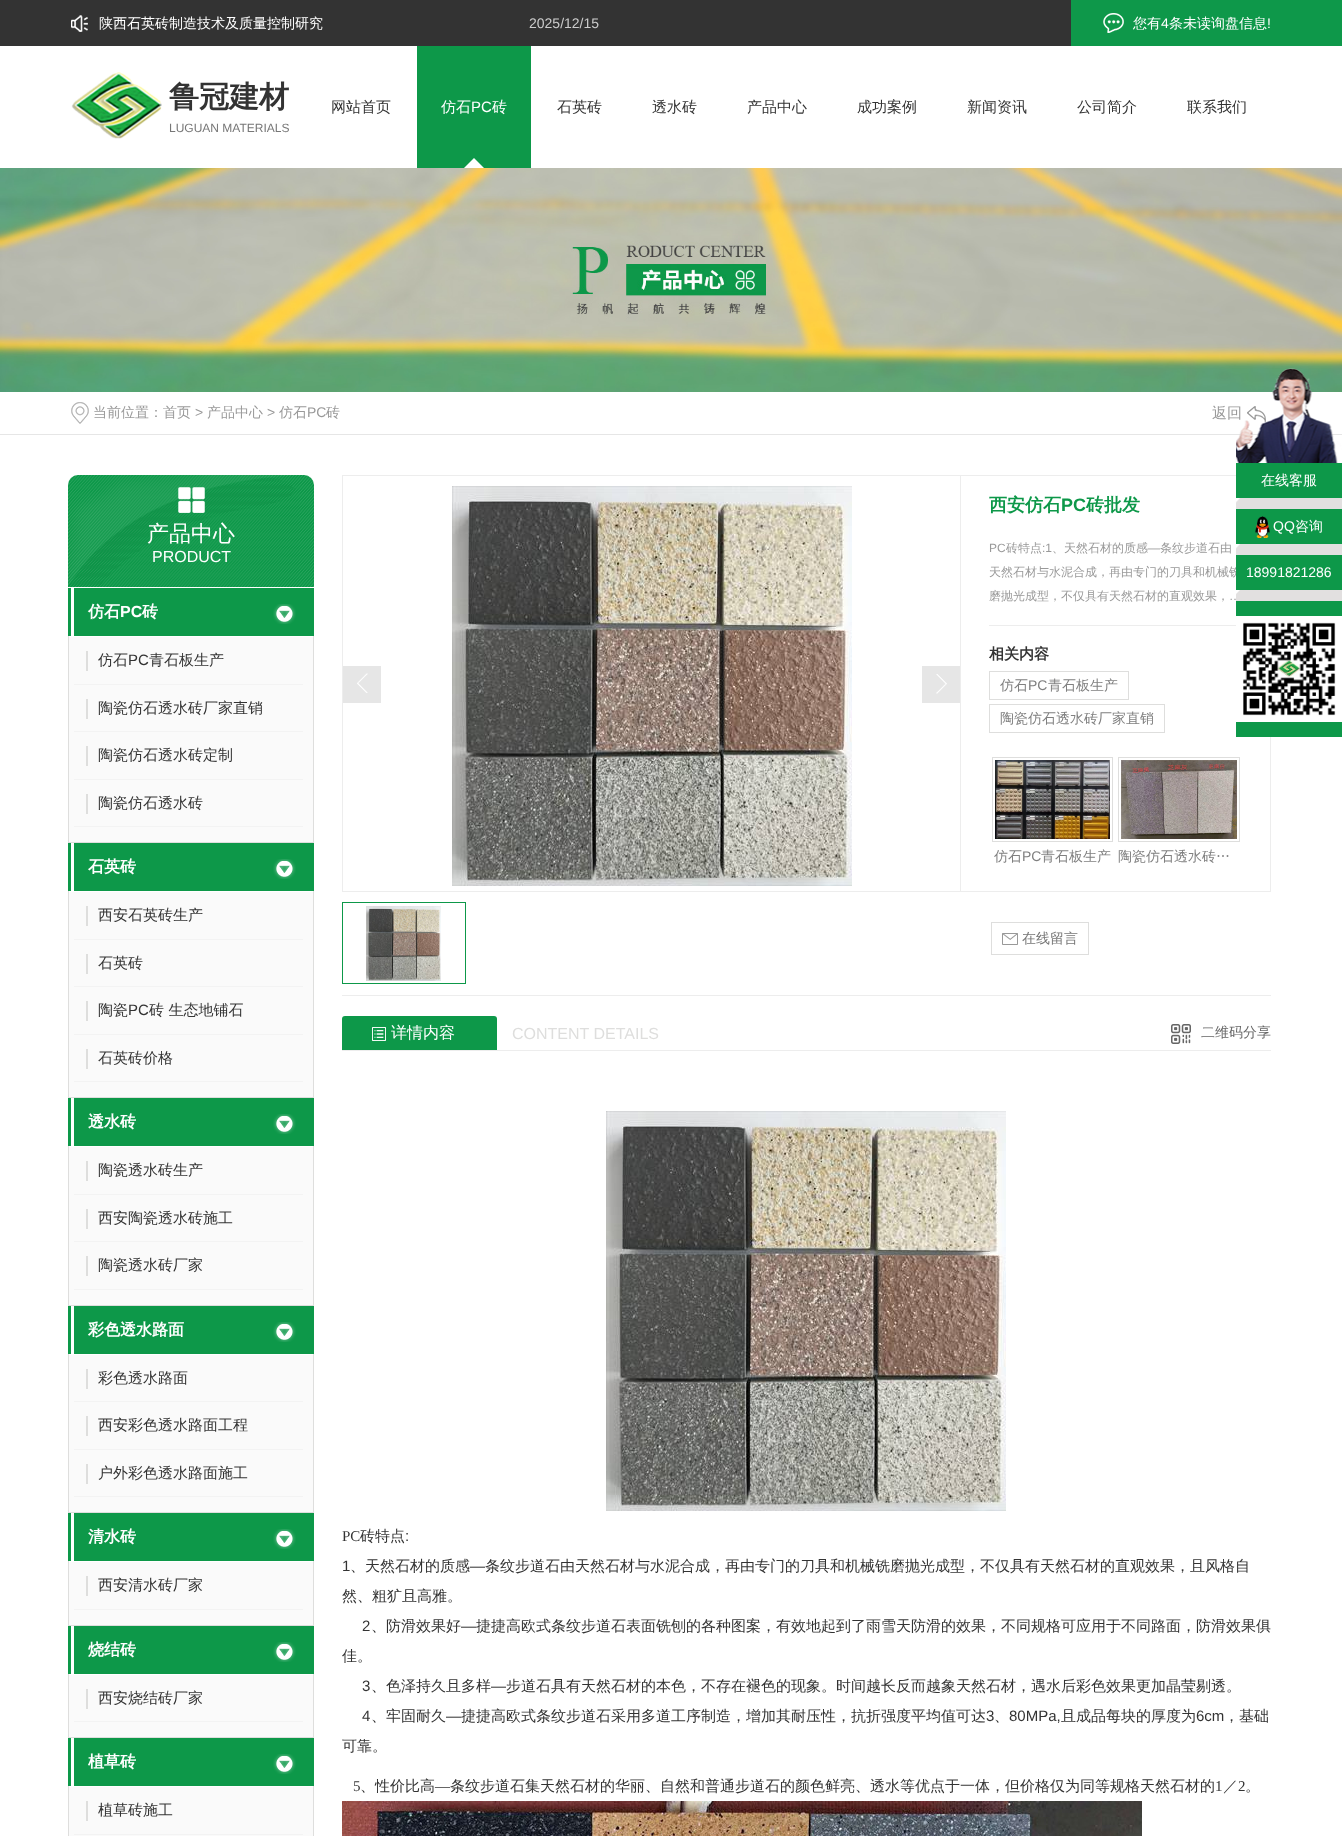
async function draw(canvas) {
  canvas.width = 1342;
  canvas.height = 1836;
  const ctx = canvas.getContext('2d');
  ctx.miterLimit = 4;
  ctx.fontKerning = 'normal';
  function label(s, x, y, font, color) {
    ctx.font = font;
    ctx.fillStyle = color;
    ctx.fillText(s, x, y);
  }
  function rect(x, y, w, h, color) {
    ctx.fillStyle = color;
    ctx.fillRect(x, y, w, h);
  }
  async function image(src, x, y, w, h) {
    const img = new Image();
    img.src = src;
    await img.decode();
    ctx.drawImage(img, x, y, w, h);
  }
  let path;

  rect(0, 0, 1342, 1836, '#fff');
  await image('assets/img1.png', 0, 0, 1342, 46);
  await image('assets/img2.png', 71, 15, 17, 17);
  label('陕西石英砖制造技术及质量控制研究', 99, 28, '500 14px WenQuanYi Zen Hei', '#fff');
  label('2025/12/15', 529, 28, '14px Liberation Sans', '#ccc');
  await image('assets/img3.png', 1103, 13, 21, 20);
  label('您有', 1133, 28, '500 14px WenQuanYi Zen Hei', '#fff');
  label('4', 1161, 28, '14px Liberation Sans', '#fff');
  label('条未读询盘信息', 1169, 28, '500 14px WenQuanYi Zen Hei', '#fff');
  label('!', 1267, 28, '14px Liberation Sans', '#fff');
  await image('assets/img4.png', 71, 72, 91, 67);
  label('鲁冠建材', 169, 107, 'bold 30px WenQuanYi Zen Hei', '#333');
  label('LUGUAN MATERIALS', 169, 132, '12px Liberation Sans', '#777');
  label('网站首页', 331, 112, '500 15px WenQuanYi Zen Hei', '#333');
  rect(417, 46, 114, 122, '#0d9849');
  label('仿石', 441, 112, '500 15px WenQuanYi Zen Hei', '#fff');
  label('PC', 471, 112, '15px Liberation Sans', '#fff');
  label('砖', 492, 112, '500 15px WenQuanYi Zen Hei', '#fff');
  path = new Path2D('M484 168H464L474 158Z');
  ctx.fill(path);
  label('石英砖', 557, 112, '500 15px WenQuanYi Zen Hei', '#333');
  label('透水砖', 652, 112, '500 15px WenQuanYi Zen Hei', '#333');
  label('产品中心', 747, 112, '500 15px WenQuanYi Zen Hei', '#333');
  label('成功案例', 857, 112, '500 15px WenQuanYi Zen Hei', '#333');
  label('新闻资讯', 967, 112, '500 15px WenQuanYi Zen Hei', '#333');
  label('公司简介', 1077, 112, '500 15px WenQuanYi Zen Hei', '#333');
  label('联系我们', 1187, 112, '500 15px WenQuanYi Zen Hei', '#333');
  await image('assets/img5.png', 0, 168, 1342, 224);
  rect(0, 434, 1342, 1, '#e6e6e6');
  await image('assets/img6.png', 71, 402, 18, 22);
  label('当前位置：首页', 93, 417, '500 14px WenQuanYi Zen Hei', '#999');
  label('>', 195, 417, '14px Liberation Sans', '#999');
  label('产品中心', 207, 417, '500 14px WenQuanYi Zen Hei', '#999');
  label('>', 267, 417, '14px Liberation Sans', '#999');
  label('仿石', 279, 417, '500 14px WenQuanYi Zen Hei', '#999');
  label('PC', 307, 417, '14px Liberation Sans', '#999');
  label('砖', 326, 417, '500 14px WenQuanYi Zen Hei', '#999');
  label('返回', 1212, 418, '500 15px WenQuanYi Zen Hei', '#999');
  await image('assets/img7.png', 1247, 406, 19, 16);
  ctx.fillStyle = '#0d9849';
  ctx.beginPath();
  ctx.roundRect(68, 475, 246, 112, [10, 10, 0, 0]);
  ctx.fill();
  await image('assets/img8.png', 68, 475, 246, 112);
  await image('assets/img9.png', 178, 487, 27, 26);
  label('产品中心', 147, 541, '500 22px WenQuanYi Zen Hei', '#fff');
  label('PRODUCT', 152, 562, '16px Liberation Sans', '#fff');
  rect(69, 637, 244, 1199, '#fafafa');
  rect(68, 588, 246, 48, '#0d9849');
  rect(71, 588, 3, 48, '#fff');
  label('仿石', 88, 617, 'bold 16px WenQuanYi Zen Hei', '#fff');
  label('PC', 120, 617, 'bold 16px Liberation Sans', '#fff');
  label('砖', 142, 617, 'bold 16px WenQuanYi Zen Hei', '#fff');
  await image('assets/img10.png', 273, 604, 23, 20);
  rect(313, 636, 1, 207, '#dededd');
  rect(68, 842, 246, 1, '#dededd');
  rect(68, 636, 1, 207, '#dededd');
  rect(74, 684, 229, 1, '#f3f3f3');
  rect(86, 651, 2, 20, '#dededd');
  label('仿石', 98, 665, '500 15px WenQuanYi Zen Hei', '#333');
  label('PC', 128, 665, '15px Liberation Sans', '#333');
  label('青石板生产', 149, 665, '500 15px WenQuanYi Zen Hei', '#333');
  rect(74, 731, 229, 1, '#f3f3f3');
  rect(86, 699, 2, 20, '#dededd');
  label('陶瓷仿石透水砖厂家直销', 98, 713, '500 15px WenQuanYi Zen Hei', '#333');
  rect(74, 779, 229, 1, '#f3f3f3');
  rect(86, 746, 2, 20, '#dededd');
  label('陶瓷仿石透水砖定制', 98, 760, '500 15px WenQuanYi Zen Hei', '#333');
  rect(74, 826, 229, 1, '#f3f3f3');
  rect(86, 794, 2, 20, '#dededd');
  label('陶瓷仿石透水砖', 98, 808, '500 15px WenQuanYi Zen Hei', '#333');
  rect(68, 843, 246, 48, '#0d9849');
  rect(71, 843, 3, 48, '#fff');
  label('石英砖', 88, 872, 'bold 16px WenQuanYi Zen Hei', '#fff');
  await image('assets/img10.png', 273, 859, 23, 20);
  rect(68, 891, 246, 1, '#fff');
  rect(313, 891, 1, 207, '#dededd');
  rect(68, 1097, 246, 1, '#dededd');
  rect(68, 891, 1, 207, '#dededd');
  rect(74, 939, 229, 1, '#f3f3f3');
  rect(86, 906, 2, 20, '#dededd');
  label('西安石英砖生产', 98, 920, '500 15px WenQuanYi Zen Hei', '#333');
  rect(74, 986, 229, 1, '#f3f3f3');
  rect(86, 954, 2, 20, '#dededd');
  label('石英砖', 98, 968, '500 15px WenQuanYi Zen Hei', '#333');
  rect(74, 1034, 229, 1, '#f3f3f3');
  rect(86, 1001, 2, 20, '#dededd');
  label('陶瓷', 98, 1015, '500 15px WenQuanYi Zen Hei', '#333');
  label('PC', 128, 1015, '15px Liberation Sans', '#333');
  label('砖 生态地铺石', 149, 1015, '500 15px WenQuanYi Zen Hei', '#333');
  rect(74, 1081, 229, 1, '#f3f3f3');
  rect(86, 1049, 2, 20, '#dededd');
  label('石英砖价格', 98, 1063, '500 15px WenQuanYi Zen Hei', '#333');
  rect(68, 1098, 246, 48, '#0d9849');
  rect(71, 1098, 3, 48, '#fff');
  label('透水砖', 88, 1127, 'bold 16px WenQuanYi Zen Hei', '#fff');
  await image('assets/img10.png', 273, 1114, 23, 20);
  rect(68, 1146, 246, 1, '#fff');
  rect(313, 1146, 1, 160, '#dededd');
  rect(68, 1305, 246, 1, '#dededd');
  rect(68, 1146, 1, 160, '#dededd');
  rect(74, 1194, 229, 1, '#f3f3f3');
  rect(86, 1161, 2, 20, '#dededd');
  label('陶瓷透水砖生产', 98, 1175, '500 15px WenQuanYi Zen Hei', '#333');
  rect(74, 1241, 229, 1, '#f3f3f3');
  rect(86, 1209, 2, 20, '#dededd');
  label('西安陶瓷透水砖施工', 98, 1223, '500 15px WenQuanYi Zen Hei', '#333');
  rect(74, 1289, 229, 1, '#f3f3f3');
  rect(86, 1256, 2, 20, '#dededd');
  label('陶瓷透水砖厂家', 98, 1270, '500 15px WenQuanYi Zen Hei', '#333');
  rect(68, 1306, 246, 48, '#0d9849');
  rect(71, 1306, 3, 48, '#fff');
  label('彩色透水路面', 88, 1335, 'bold 16px WenQuanYi Zen Hei', '#fff');
  await image('assets/img10.png', 273, 1322, 23, 20);
  rect(68, 1354, 246, 1, '#fff');
  rect(313, 1354, 1, 159, '#dededd');
  rect(68, 1512, 246, 1, '#dededd');
  rect(68, 1354, 1, 159, '#dededd');
  rect(74, 1401, 229, 1, '#f3f3f3');
  rect(86, 1369, 2, 20, '#dededd');
  label('彩色透水路面', 98, 1383, '500 15px WenQuanYi Zen Hei', '#333');
  rect(74, 1449, 229, 1, '#f3f3f3');
  rect(86, 1416, 2, 20, '#dededd');
  label('西安彩色透水路面工程', 98, 1430, '500 15px WenQuanYi Zen Hei', '#333');
  rect(74, 1496, 229, 1, '#f3f3f3');
  rect(86, 1464, 2, 20, '#dededd');
  label('户外彩色透水路面施工', 98, 1478, '500 15px WenQuanYi Zen Hei', '#333');
  rect(68, 1513, 246, 48, '#0d9849');
  rect(71, 1513, 3, 48, '#fff');
  label('清水砖', 88, 1542, 'bold 16px WenQuanYi Zen Hei', '#fff');
  await image('assets/img10.png', 273, 1529, 23, 20);
  rect(68, 1561, 246, 1, '#fff');
  rect(313, 1561, 1, 65, '#dededd');
  rect(68, 1625, 246, 1, '#dededd');
  rect(68, 1561, 1, 65, '#dededd');
  rect(74, 1609, 229, 1, '#f3f3f3');
  rect(86, 1576, 2, 20, '#dededd');
  label('西安清水砖厂家', 98, 1590, '500 15px WenQuanYi Zen Hei', '#333');
  rect(68, 1626, 246, 48, '#0d9849');
  rect(71, 1626, 3, 48, '#fff');
  label('烧结砖', 88, 1655, 'bold 16px WenQuanYi Zen Hei', '#fff');
  await image('assets/img10.png', 273, 1642, 23, 20);
  rect(68, 1674, 246, 1, '#fff');
  rect(313, 1674, 1, 64, '#dededd');
  rect(68, 1737, 246, 1, '#dededd');
  rect(68, 1674, 1, 64, '#dededd');
  rect(74, 1721, 229, 1, '#f3f3f3');
  rect(86, 1689, 2, 20, '#dededd');
  label('西安烧结砖厂家', 98, 1703, '500 15px WenQuanYi Zen Hei', '#333');
  rect(68, 1738, 246, 48, '#0d9849');
  rect(71, 1738, 3, 48, '#fff');
  label('植草砖', 88, 1767, 'bold 16px WenQuanYi Zen Hei', '#fff');
  await image('assets/img10.png', 273, 1754, 23, 20);
  rect(68, 1786, 246, 1, '#fff');
  rect(313, 1786, 1, 50, '#dededd');
  rect(68, 1786, 1, 50, '#dededd');
  rect(74, 1834, 229, 1, '#f3f3f3');
  rect(86, 1801, 2, 20, '#dededd');
  label('植草砖施工', 98, 1815, '500 15px WenQuanYi Zen Hei', '#333');
  ctx.strokeStyle = '#ededed';
  ctx.strokeRect(342.5, 475.5, 618, 416);
  rect(343, 666, 38, 37, '#e6e6e6');
  await image('assets/img11.png', 357, 673, 11, 20);
  await image('assets/img12.png', 452, 486, 400, 400);
  rect(922, 666, 38, 37, '#e6e6e6');
  await image('assets/img13.png', 936, 674, 11, 20);
  ctx.strokeStyle = '#0d9849';
  ctx.strokeRect(342.5, 902.5, 123, 81);
  await image('assets/img14.png', 366, 906, 75, 75);
  rect(961, 475, 275, 1, '#ededed');
  rect(1270, 737, 1, 155, '#ededed');
  rect(961, 891, 310, 1, '#ededed');
  rect(989, 625, 253, 1, '#ededed');
  label('西安仿石', 989, 511, 'bold 18px WenQuanYi Zen Hei', '#0d9849');
  label('PC', 1061, 511, 'bold 18px Liberation Sans', '#0d9849');
  label('砖批发', 1086, 511, 'bold 18px WenQuanYi Zen Hei', '#0d9849');
  label('PC', 989, 552, '12px Liberation Sans', '#999');
  label('砖特点', 1006, 552, '500 12px WenQuanYi Zen Hei', '#999');
  label(':1', 1042, 552, '12px Liberation Sans', '#999');
  label('、天然石材的质感', 1052, 552, '500 12px WenQuanYi Zen Hei', '#999');
  label('—', 1148, 552, '12px Liberation Sans', '#999');
  label('条纹步道石由', 1160, 552, '500 12px WenQuanYi Zen Hei', '#999');
  label('天然石材与水泥合成，再由专门的刀具和机械铣', 989, 576, '500 12px WenQuanYi Zen Hei', '#999');
  label('磨抛光成型，不仅具有天然石材的直观效果，', 989, 600, '500 12px WenQuanYi Zen Hei', '#999');
  label('…', 1229, 600, '12px Liberation Sans', '#999');
  label('相关内容', 989, 659, 'bold 15px WenQuanYi Zen Hei', '#333');
  ctx.strokeStyle = '#dededd';
  ctx.strokeRect(989.5, 671.5, 139, 28);
  label('仿石', 1000, 690, '500 14px WenQuanYi Zen Hei', '#808080');
  label('PC', 1028, 690, '14px Liberation Sans', '#808080');
  label('青石板生产', 1048, 690, '500 14px WenQuanYi Zen Hei', '#808080');
  ctx.strokeRect(989.5, 704.5, 175, 28);
  label('陶瓷仿石透水砖厂家直销', 1000, 723, '500 14px WenQuanYi Zen Hei', '#808080');
  ctx.strokeRect(992.5, 757.5, 120, 84);
  await image('assets/img15.png', 995, 760, 115, 79);
  label('仿石', 994, 861, '500 14px WenQuanYi Zen Hei', '#808080');
  label('PC', 1022, 861, '14px Liberation Sans', '#808080');
  label('青石板生产', 1041, 861, '500 14px WenQuanYi Zen Hei', '#808080');
  ctx.strokeRect(1118.5, 757.5, 121, 84);
  await image('assets/img16.png', 1121, 760, 116, 79);
  label('陶瓷仿石透水砖…', 1118, 861, '500 14px WenQuanYi Zen Hei', '#808080');
  ctx.strokeRect(991.5, 922.5, 97, 32);
  await image('assets/img17.png', 1002, 933, 16, 12);
  label('在线留言', 1022, 943, '500 14px WenQuanYi Zen Hei', '#777');
  rect(342, 995, 929, 1, '#ededed');
  rect(342, 1050, 929, 1, '#ededed');
  ctx.fillStyle = '#0d9849';
  ctx.beginPath();
  ctx.roundRect(342, 1016, 155, 34, [3, 3, 0, 0]);
  ctx.fill();
  await image('assets/img18.png', 372, 1027, 14, 14);
  label('详情内容', 391, 1038, '500 16px WenQuanYi Zen Hei', '#fff');
  label('CONTENT DETAILS', 512, 1039, '16px Liberation Sans', '#dededd');
  await image('assets/img19.png', 1171, 1024, 20, 20);
  label('二维码分享', 1201, 1037, '500 14px WenQuanYi Zen Hei', '#666');
  await image('assets/img12.png', 606, 1111, 400, 400);
  label('PC', 342, 1541, '15px Liberation Serif', '#333');
  label('砖特点', 360, 1541, '500 15px WenQuanYi Zen Hei', '#333');
  label(':', 405, 1541, '15px Liberation Sans', '#333');
  label('1', 342, 1571, '15px Liberation Sans', '#333');
  label('、天然石材的质感', 350, 1571, '500 15px WenQuanYi Zen Hei', '#333');
  label('—', 470, 1571, '15px Liberation Sans', '#333');
  label('条纹步道石由天然石材与水泥合成，再由专门的刀具和机械铣磨抛光成型，不仅具有天然石材的直观效果，且风格自', 485, 1571, '500 15px WenQuanYi Zen Hei', '#333');
  label('然、粗犷且高雅。', 342, 1601, '500 15px WenQuanYi Zen Hei', '#333');
  label('2', 362, 1631, '15px Liberation Sans', '#333');
  label('、防滑效果好', 371, 1631, '500 15px WenQuanYi Zen Hei', '#333');
  label('—', 461, 1631, '15px Liberation Sans', '#333');
  label('捷捷高欧式条纹步道石表面铣刨的各种图案，有效地起到了雨雪天防滑的效果，不同规格可应用于不同路面，防滑效果俱', 476, 1631, '500 15px WenQuanYi Zen Hei', '#333');
  label('佳。', 342, 1661, '500 15px WenQuanYi Zen Hei', '#333');
  label('3', 362, 1691, '15px Liberation Sans', '#333');
  label('、色泽持久且多样', 371, 1691, '500 15px WenQuanYi Zen Hei', '#333');
  label('—', 491, 1691, '15px Liberation Sans', '#333');
  label('步道石具有天然石材的本色，不存在褪色的现象。时间越长反而越象天然石材，遇水后彩色效果更加晶莹剔透。', 506, 1691, '500 15px WenQuanYi Zen Hei', '#333');
  label('4', 362, 1721, '15px Liberation Sans', '#333');
  label('、牢固耐久', 371, 1721, '500 15px WenQuanYi Zen Hei', '#333');
  label('—', 446, 1721, '15px Liberation Sans', '#333');
  label('捷捷高欧式条纹步道石采用多道工序制造，增加其耐压性，抗折强度平均值可达', 461, 1721, '500 15px WenQuanYi Zen Hei', '#333');
  label('3', 986, 1721, '15px Liberation Sans', '#333');
  label('80MPa,', 1009, 1721, '15px Liberation Sans', '#333');
  label('且成品每块的厚度为', 1061, 1721, '500 15px WenQuanYi Zen Hei', '#333');
  label('6cm', 1196, 1721, '15px Liberation Sans', '#333');
  label('，基础', 1224, 1721, '500 15px WenQuanYi Zen Hei', '#333');
  label('、', 994, 1721, '500 15px WenQuanYi Zen Hei', '#333');
  label('可靠。', 342, 1751, '500 15px WenQuanYi Zen Hei', '#333');
  label('5', 353, 1791, '15px Liberation Serif', '#333');
  label('、性价比高', 360, 1791, '500 15px WenQuanYi Zen Hei', '#333');
  label('—', 435, 1791, '15px Liberation Serif', '#333');
  label('条纹步道石集天然石材的华丽、自然和普通步道石的颜色鲜亮、透水等优点于一体，但价格仅为同等规格天然石材的', 450, 1791, '500 15px WenQuanYi Zen Hei', '#333');
  label('1', 1215, 1791, '15px Liberation Serif', '#333');
  label('／', 1223, 1791, '500 15px WenQuanYi Zen Hei', '#333');
  label('2', 1238, 1791, '15px Liberation Serif', '#333');
  label('。', 1245, 1791, '500 15px WenQuanYi Zen Hei', '#333');
  await image('assets/img20.png', 342, 1801, 800, 35);
  await image('assets/img21.png', 1236, 368, 106, 233);
  rect(1236, 463, 106, 35, '#0d9849');
  label('在线客服', 1261, 485, '500 14px WenQuanYi Zen Hei', '#fff');
  rect(1236, 509, 106, 35, '#0d9849');
  await image('assets/img22.png', 1255, 516, 15, 22);
  label('QQ', 1273, 531, '14px Liberation Sans', '#fff');
  label('咨询', 1295, 531, '500 14px WenQuanYi Zen Hei', '#fff');
  rect(1236, 555, 106, 35, '#0d9849');
  label('18991821286', 1246, 577, '14px Liberation Sans', '#fff');
  rect(1236, 601, 106, 136, '#0d9849');
  ctx.strokeStyle = '#fff';
  ctx.lineWidth = 5;
  ctx.strokeRect(1238.5, 618.5, 101, 101);
  await image('assets/img23.png', 1241, 621, 96, 96);
}

draw(document.querySelector('canvas'));
